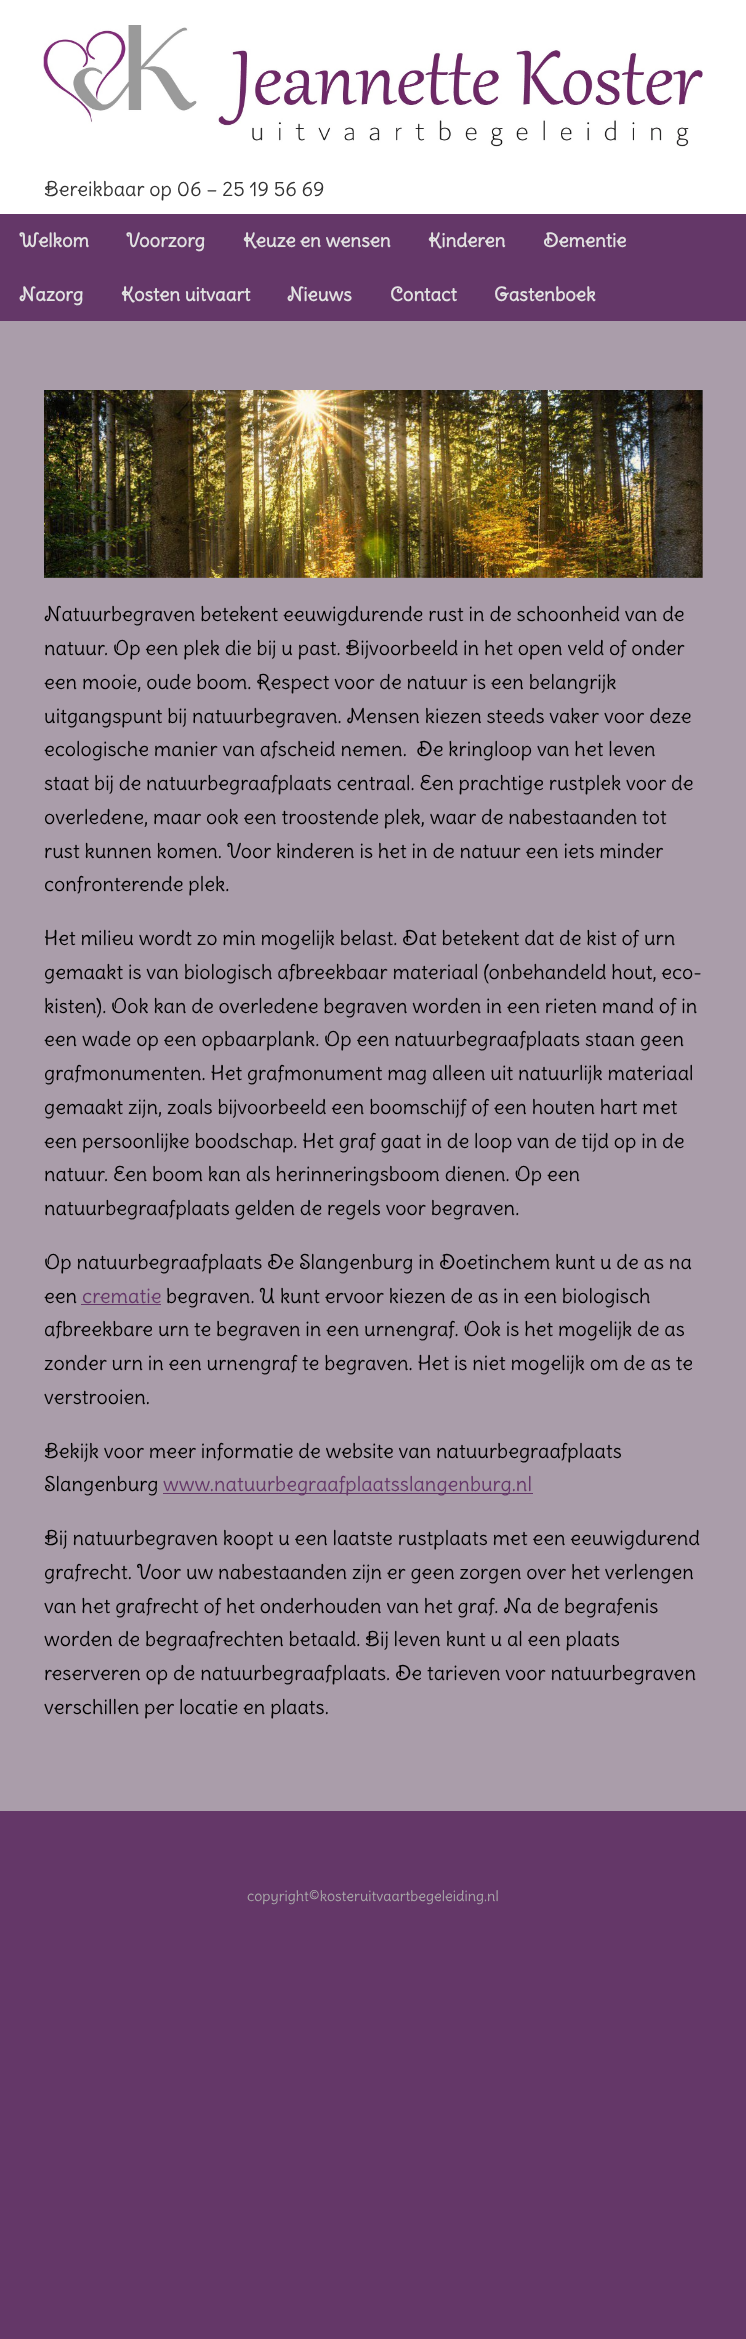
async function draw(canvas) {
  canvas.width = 746;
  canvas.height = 2339;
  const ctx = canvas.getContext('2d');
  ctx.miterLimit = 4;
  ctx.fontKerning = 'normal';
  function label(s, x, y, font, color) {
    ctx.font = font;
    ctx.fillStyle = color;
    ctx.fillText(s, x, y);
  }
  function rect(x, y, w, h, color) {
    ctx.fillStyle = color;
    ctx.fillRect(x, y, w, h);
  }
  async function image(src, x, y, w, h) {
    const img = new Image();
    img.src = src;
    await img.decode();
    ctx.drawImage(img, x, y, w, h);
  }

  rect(0, 0, 746, 2339, '#643768');
  rect(0, 0, 746, 214, '#fff');
  await image('assets/img1.png', 43, 25, 660, 122);
  label('Bereikbaar op 06 – 25 19 56 69', 44, 196, '20px Delius Swash Caps', '#333');
  label('Welkom', 19, 247, 'bold 18.75px Delius Swash Caps', '#e2e2e2');
  label('Voorzorg', 126, 247, 'bold 18.75px Delius Swash Caps', '#e2e2e2');
  label('Keuze en wensen', 243, 247, 'bold 18.75px Delius Swash Caps', '#e2e2e2');
  label('Kinderen', 428, 247, 'bold 18.75px Delius Swash Caps', '#e2e2e2');
  label('Dementie', 543, 247, 'bold 18.75px Delius Swash Caps', '#e2e2e2');
  label('Nazorg', 19, 301, 'bold 18.75px Delius Swash Caps', '#e2e2e2');
  label('Kosten uitvaart', 121, 301, 'bold 18.75px Delius Swash Caps', '#e2e2e2');
  label('Nieuws', 287, 301, 'bold 18.75px Delius Swash Caps', '#e2e2e2');
  label('Contact', 390, 301, 'bold 18.75px Delius Swash Caps', '#e2e2e2');
  label('Gastenboek', 494, 301, 'bold 18.75px Delius Swash Caps', '#e2e2e2');
  rect(0, 321, 746, 1490, '#aa9daa');
  await image('assets/img2.png', 44, 390, 659, 188);
  label('Natuurbegraven betekent eeuwigdurende rust in de schoonheid van de', 44, 621, '20px Delius Swash Caps', '#000');
  label('natuur. Op een plek die bij u past. Bijvoorbeeld in het open veld of onder', 44, 655, '20px Delius Swash Caps', '#000');
  label('een mooie, oude boom. Respect voor de natuur is een belangrijk', 44, 689, '20px Delius Swash Caps', '#000');
  label('uitgangspunt bij natuurbegraven. Mensen kiezen steeds vaker voor deze', 44, 723, '20px Delius Swash Caps', '#000');
  label('ecologische manier van afscheid nemen.  De kringloop van het leven', 44, 756, '20px Delius Swash Caps', '#000');
  label('staat bij de natuurbegraafplaats centraal. Een prachtige rustplek voor de', 44, 790, '20px Delius Swash Caps', '#000');
  label('overledene, maar ook een troostende plek, waar de nabestaanden tot', 44, 824, '20px Delius Swash Caps', '#000');
  label('rust kunnen komen. Voor kinderen is het in de natuur een iets minder', 44, 858, '20px Delius Swash Caps', '#000');
  label('confronterende plek.', 44, 891, '20px Delius Swash Caps', '#000');
  label('Het milieu wordt zo min mogelijk belast. Dat betekent dat de kist of urn', 44, 945, '20px Delius Swash Caps', '#000');
  label('gemaakt is van biologisch afbreekbaar materiaal (onbehandeld hout, eco-', 44, 979, '20px Delius Swash Caps', '#000');
  label('kisten). Ook kan de overledene begraven worden in een rieten mand of in', 44, 1013, '20px Delius Swash Caps', '#000');
  label('een wade op een opbaarplank. Op een natuurbegraafplaats staan geen', 44, 1046, '20px Delius Swash Caps', '#000');
  label('grafmonumenten. Het grafmonument mag alleen uit natuurlijk materiaal', 44, 1080, '20px Delius Swash Caps', '#000');
  label('gemaakt zijn, zoals bijvoorbeeld een boomschijf of een houten hart met', 44, 1114, '20px Delius Swash Caps', '#000');
  label('een persoonlijke boodschap. Het graf gaat in de loop van de tijd op in de', 44, 1148, '20px Delius Swash Caps', '#000');
  label('natuur. Een boom kan als herinneringsboom dienen. Op een', 44, 1181, '20px Delius Swash Caps', '#000');
  label('natuurbegraafplaats gelden de regels voor begraven.', 44, 1215, '20px Delius Swash Caps', '#000');
  label('Op natuurbegraafplaats De Slangenburg in Doetinchem kunt u de as na', 44, 1269, '20px Delius Swash Caps', '#000');
  label('een', 44, 1303, '20px Delius Swash Caps', '#000');
  rect(81, 1304, 80, 1, '#643768');
  label('crematie', 82, 1303, '20px Delius Swash Caps', '#643768');
  label('begraven. U kunt ervoor kiezen de as in een biologisch', 166, 1303, '20px Delius Swash Caps', '#000');
  label('afbreekbare urn te begraven in een urnengraf. Ook is het mogelijk de as', 44, 1336, '20px Delius Swash Caps', '#000');
  label('zonder urn in een urnengraf te begraven. Het is niet mogelijk om de as te', 44, 1370, '20px Delius Swash Caps', '#000');
  label('verstrooien.', 44, 1404, '20px Delius Swash Caps', '#000');
  label('Bekijk voor meer informatie de website van natuurbegraafplaats', 44, 1458, '20px Delius Swash Caps', '#000');
  label('Slangenburg', 44, 1491, '20px Delius Swash Caps', '#000');
  rect(163, 1493, 370, 1, '#643768');
  label('www.natuurbegraafplaatsslangenburg.nl', 163, 1491, '20px Delius Swash Caps', '#643768');
  label('Bij natuurbegraven koopt u een laatste rustplaats met een eeuwigdurend', 44, 1545, '20px Delius Swash Caps', '#000');
  label('grafrecht. Voor uw nabestaanden zijn er geen zorgen over het verlengen', 44, 1579, '20px Delius Swash Caps', '#000');
  label('van het grafrecht of het onderhouden van het graf. Na de begrafenis', 44, 1613, '20px Delius Swash Caps', '#000');
  label('worden de begraafrechten betaald. Bij leven kunt u al een plaats', 44, 1646, '20px Delius Swash Caps', '#000');
  label('reserveren op de natuurbegraafplaats. De tarieven voor natuurbegraven', 44, 1680, '20px Delius Swash Caps', '#000');
  label('verschillen per locatie en plaats.', 44, 1714, '20px Delius Swash Caps', '#000');
  label('copyright©kosteruitvaartbegeleiding.nl', 247, 1901, '14.4px Delius Swash Caps', '#aaa');
}

draw(document.querySelector('canvas'));
